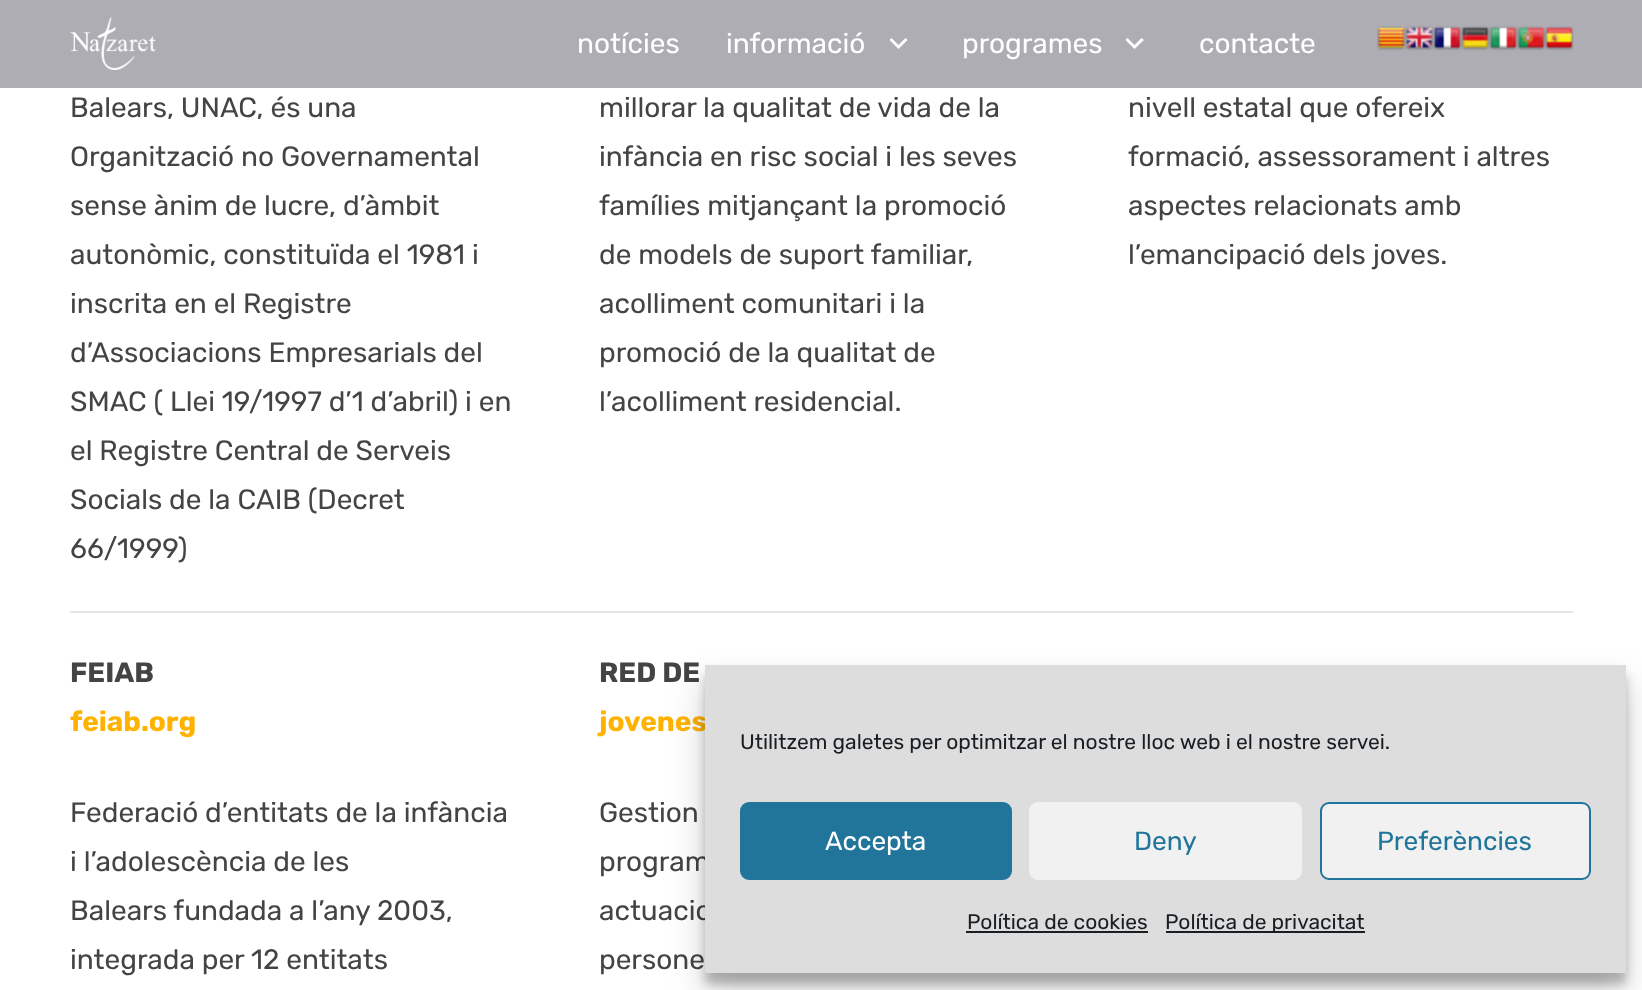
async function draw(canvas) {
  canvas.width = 1642;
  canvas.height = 990;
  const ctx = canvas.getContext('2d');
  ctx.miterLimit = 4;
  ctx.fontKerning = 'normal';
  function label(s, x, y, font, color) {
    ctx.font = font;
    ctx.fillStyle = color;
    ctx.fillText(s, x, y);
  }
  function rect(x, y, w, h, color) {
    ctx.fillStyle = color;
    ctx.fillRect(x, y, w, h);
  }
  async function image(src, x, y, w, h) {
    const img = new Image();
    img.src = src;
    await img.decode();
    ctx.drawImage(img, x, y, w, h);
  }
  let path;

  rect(0, 0, 1642, 990, '#fff');
  rect(0, 0, 1642, 88, '#aeadb3');
  await image('assets/img1.png', 70, 17, 86, 53);
  label('notícies', 577, 53, '28px Rubik', '#fff');
  label('informació', 726, 53, '28px Rubik', '#fff');
  path = new Path2D('M891.5 38L898.5 45L905.5 38L907.5 40L898.5 49L889.5 40Z');
  ctx.fill(path);
  label('programes', 962, 53, '28px Rubik', '#fff');
  path = new Path2D('M1127.5 38L1134.5 45L1141.5 38L1144 40L1134.5 49L1125.5 40Z');
  ctx.fill(path);
  label('contacte', 1199, 53, '28px Rubik', '#fff');
  await image('assets/img2.png', 1377, 26, 29, 25);
  await image('assets/img3.png', 1405, 26, 29, 25);
  await image('assets/img4.png', 1433, 26, 29, 25);
  await image('assets/img5.png', 1461, 26, 29, 25);
  await image('assets/img6.png', 1489, 26, 29, 25);
  await image('assets/img7.png', 1517, 26, 29, 25);
  await image('assets/img8.png', 1545, 26, 29, 25);
  label('Balears, UNAC, és una', 70, 117, '28px Rubik', '#444');
  label('Organització no Governamental', 70, 166, '28px Rubik', '#444');
  label('sense ànim de lucre, d’àmbit', 70, 215, '28px Rubik', '#444');
  label('autonòmic, constituïda el 1981 i', 70, 264, '28px Rubik', '#444');
  label('inscrita en el Registre', 70, 313, '28px Rubik', '#444');
  label('d’Associacions Empresarials del', 70, 362, '28px Rubik', '#444');
  label('SMAC ( Llei 19/1997 d’1 d’abril) i en', 70, 411, '28px Rubik', '#444');
  label('el Registre Central de Serveis', 70, 460, '28px Rubik', '#444');
  label('Socials de la CAIB (Decret', 70, 509, '28px Rubik', '#444');
  label('66/1999)', 70, 558, '28px Rubik', '#444');
  label('millorar la qualitat de vida de la', 599, 117, '28px Rubik', '#444');
  label('infància en risc social i les seves', 599, 166, '28px Rubik', '#444');
  label('famílies mitjançant la promoció', 599, 215, '28px Rubik', '#444');
  label('de models de suport familiar,', 599, 264, '28px Rubik', '#444');
  label('acolliment comunitari i la', 599, 313, '28px Rubik', '#444');
  label('promoció de la qualitat de', 599, 362, '28px Rubik', '#444');
  label('l’acolliment residencial.', 599, 411, '28px Rubik', '#444');
  label('nivell estatal que ofereix', 1128, 117, '28px Rubik', '#444');
  label('formació, assessorament i altres', 1128, 166, '28px Rubik', '#444');
  label('aspectes relacionats amb', 1128, 215, '28px Rubik', '#444');
  label('l’emancipació dels joves.', 1128, 264, '28px Rubik', '#444');
  rect(70, 611, 1503, 2, '#e5e5e5');
  label('FEIAB', 70, 682, 'bold 28px Rubik', '#444');
  label('feiab.org', 70, 731, 'bold 28px Rubik', '#ffb300');
  label('Federació d’entitats de la infància', 70, 822, '28px Rubik', '#444');
  label('i l’adolescència de les', 70, 871, '28px Rubik', '#444');
  label('Balears fundada a l’any 2003,', 70, 920, '28px Rubik', '#444');
  label('integrada per 12 entitats', 70, 969, '28px Rubik', '#444');
  label('RED DE', 599, 682, 'bold 28px Rubik', '#444');
  label('jovenes', 599, 731, 'bold 28px Rubik', '#ffb300');
  label('Gestion', 599, 822, '28px Rubik', '#444');
  label('program', 599, 871, '28px Rubik', '#444');
  label('actuacio', 599, 920, '28px Rubik', '#444');
  label('persone', 599, 969, '28px Rubik', '#444');
  ctx.fillStyle = '#0000003b';
  ctx.filter = 'blur(5px)';
  ctx.beginPath();
  ctx.rect(705, 676, 921, 308);
  ctx.fill();
  ctx.filter = 'none';
  ctx.fillStyle = '#00000030';
  ctx.filter = 'blur(17.5px)';
  ctx.beginPath();
  ctx.rect(705, 683, 921, 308);
  ctx.fill();
  ctx.filter = 'none';
  rect(705, 665, 921, 308, '#ddd');
  label('Utilitzem galetes per optimitzar el nostre lloc web i el nostre servei.', 740, 749, '21px Rubik', '#191e23');
  ctx.fillStyle = '#21759b';
  ctx.beginPath();
  ctx.roundRect(741, 803, 270, 76, 8);
  ctx.fill();
  ctx.strokeStyle = '#21759b';
  ctx.lineWidth = 2;
  ctx.stroke();
  label('Accepta', 825, 850, '26.25px Rubik', '#fff');
  ctx.fillStyle = '#f1f1f1';
  ctx.beginPath();
  ctx.roundRect(1030, 803, 271, 76, 8);
  ctx.fill();
  ctx.strokeStyle = '#f1f1f1';
  ctx.stroke();
  label('Deny', 1134, 850, '26.25px Rubik', '#21759b');
  ctx.fillStyle = '#f1f1f1';
  ctx.beginPath();
  ctx.roundRect(1321, 803, 269, 76, 8);
  ctx.fill();
  ctx.strokeStyle = '#21759b';
  ctx.stroke();
  label('Preferències', 1377, 850, '26.25px Rubik', '#21759b');
  label('Política de cookies', 967, 929, '21px Rubik', '#191e23');
  rect(966, 931, 182, 2, '#191e23');
  rect(1166, 931, 199, 2, '#191e23');
  label('Política de privacitat', 1165, 929, '21px Rubik', '#191e23');
}

draw(document.querySelector('canvas'));
